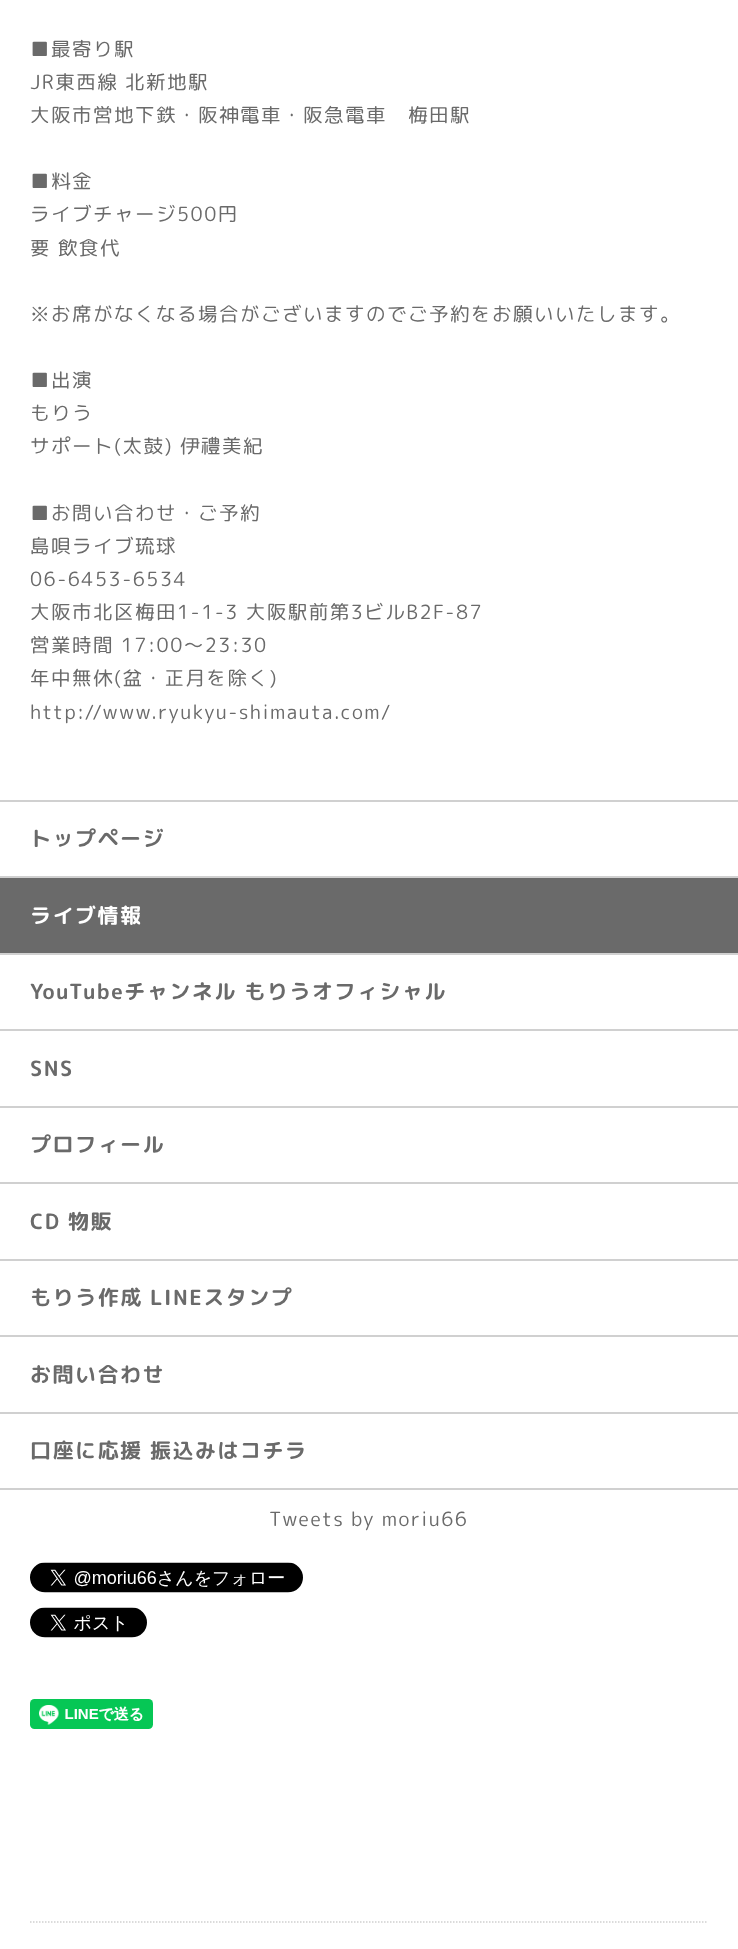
async function draw(canvas) {
  canvas.width = 738;
  canvas.height = 1949;
  const ctx = canvas.getContext('2d');
  ctx.miterLimit = 4;
  ctx.fontKerning = 'normal';
  function label(s, x, y, font, color) {
    ctx.font = font;
    ctx.fillStyle = color;
    ctx.fillText(s, x, y);
  }
  function rect(x, y, w, h, color) {
    ctx.fillStyle = color;
    ctx.fillRect(x, y, w, h);
  }
  async function image(src, x, y, w, h) {
    const img = new Image();
    img.src = src;
    await img.decode();
    ctx.drawImage(img, x, y, w, h);
  }
  let path;

  rect(0, 0, 738, 1949, '#fff');
  ctx.letterSpacing = '1.5px';
  label('■最寄り駅', 30, 56, '19.5px "Rounded Mplus 1c"', '#6a6a6a');
  label('JR東西線 北新地駅', 30, 89, '19.5px "Rounded Mplus 1c"', '#6a6a6a');
  label('大阪市営地下鉄・阪神電車・阪急電車　梅田駅', 30, 122, '19.5px "Rounded Mplus 1c"', '#6a6a6a');
  label('■料金', 30, 188, '19.5px "Rounded Mplus 1c"', '#6a6a6a');
  label('ライブチャージ500円', 30, 221, '19.5px "Rounded Mplus 1c"', '#6a6a6a');
  label('要 飲食代', 30, 255, '19.5px "Rounded Mplus 1c"', '#6a6a6a');
  label('※お席がなくなる場合がございますのでご予約をお願いいたします。', 30, 321, '19.5px "Rounded Mplus 1c"', '#6a6a6a');
  label('■出演', 30, 387, '19.5px "Rounded Mplus 1c"', '#6a6a6a');
  label('もりう', 30, 420, '19.5px "Rounded Mplus 1c"', '#6a6a6a');
  label('サポート(太鼓) 伊禮美紀', 30, 453, '19.5px "Rounded Mplus 1c"', '#6a6a6a');
  label('■お問い合わせ・ご予約', 30, 520, '19.5px "Rounded Mplus 1c"', '#6a6a6a');
  label('島唄ライブ琉球', 30, 553, '19.5px "Rounded Mplus 1c"', '#6a6a6a');
  label('06-6453-6534', 30, 586, '19.5px "Rounded Mplus 1c"', '#6a6a6a');
  label('大阪市北区梅田1-1-3 大阪駅前第3ビルB2F-87', 30, 619, '19.5px "Rounded Mplus 1c"', '#6a6a6a');
  label('営業時間 17:00～23:30', 30, 652, '19.5px "Rounded Mplus 1c"', '#6a6a6a');
  label('年中無休(盆・正月を除く)', 30, 685, '19.5px "Rounded Mplus 1c"', '#6a6a6a');
  label('http://www.ryukyu-shimauta.com/', 30, 719, '19.5px "Rounded Mplus 1c"', '#6a6a6a');
  rect(0, 800, 738, 2, '#d0d0d0');
  rect(0, 876, 738, 2, '#d0d0d0');
  label('トップページ', 30, 846, 'bold 21px "Rounded Mplus 1c Bold"', '#6a6a6a');
  rect(0, 953, 738, 2, '#d0d0d0');
  rect(0, 878, 738, 75, '#6a6a6a');
  label('ライブ情報', 30, 923, 'bold 21px "Rounded Mplus 1c Bold"', '#fff');
  rect(0, 1029, 738, 2, '#d0d0d0');
  label('YouTubeチャンネル もりうオフィシャル', 30, 999, 'bold 21px "Rounded Mplus 1c Bold"', '#6a6a6a');
  rect(0, 1106, 738, 2, '#d0d0d0');
  label('SNS', 30, 1076, 'bold 21px "Rounded Mplus 1c Bold"', '#6a6a6a');
  rect(0, 1182, 738, 2, '#d0d0d0');
  label('プロフィール', 30, 1152, 'bold 21px "Rounded Mplus 1c Bold"', '#6a6a6a');
  rect(0, 1259, 738, 2, '#d0d0d0');
  label('CD 物販', 30, 1229, 'bold 21px "Rounded Mplus 1c Bold"', '#6a6a6a');
  rect(0, 1335, 738, 2, '#d0d0d0');
  label('もりう作成 LINEスタンプ', 30, 1305, 'bold 21px "Rounded Mplus 1c Bold"', '#6a6a6a');
  rect(0, 1412, 738, 2, '#d0d0d0');
  label('お問い合わせ', 30, 1382, 'bold 21px "Rounded Mplus 1c Bold"', '#6a6a6a');
  rect(0, 1488, 738, 2, '#d0d0d0');
  label('口座に応援 振込みはコチラ', 30, 1458, 'bold 21px "Rounded Mplus 1c Bold"', '#6a6a6a');
  label('Tweets by moriu66', 269, 1526, '19.5px "Rounded Mplus 1c"', '#6a6a6a');
  await image('assets/img1.png', 30, 1562, 273, 31);
  await image('assets/img2.png', 30, 1607, 117, 31);
  await image('assets/img3.png', 30, 1699, 123, 30);
  path = new Path2D('M30 1922H708');
  ctx.strokeStyle = '#d0d0d0';
  ctx.lineWidth = 1.5;
  ctx.setLineDash([1.5, 1.5]);
  ctx.stroke(path);
}

draw(document.querySelector('canvas'));
